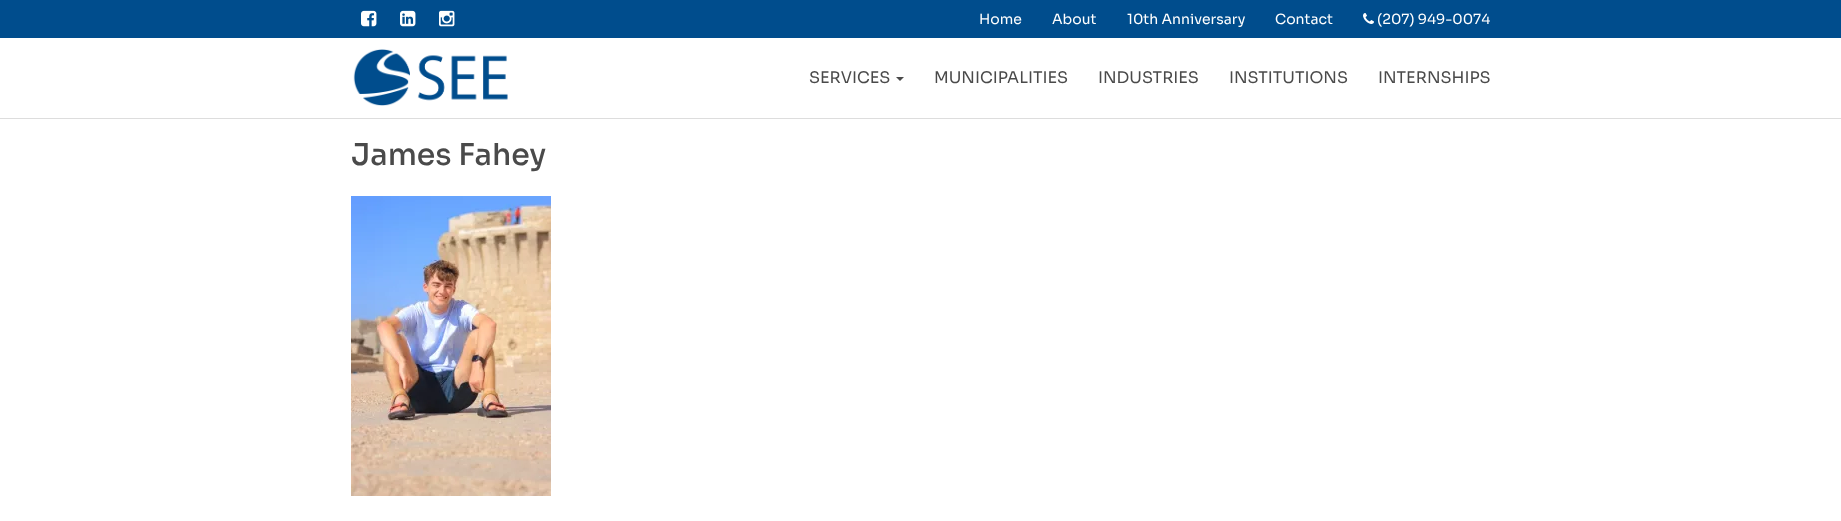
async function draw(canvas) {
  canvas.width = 1841;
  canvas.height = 521;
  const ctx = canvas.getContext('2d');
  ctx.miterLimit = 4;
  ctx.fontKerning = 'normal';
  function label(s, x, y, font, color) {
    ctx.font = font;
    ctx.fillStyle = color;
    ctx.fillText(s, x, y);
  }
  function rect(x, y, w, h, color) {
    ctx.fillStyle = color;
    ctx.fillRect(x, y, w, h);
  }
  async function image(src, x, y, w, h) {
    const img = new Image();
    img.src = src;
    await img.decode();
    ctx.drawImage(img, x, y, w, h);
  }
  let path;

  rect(0, 0, 1841, 521, '#fff');
  rect(0, 0, 1841, 38, '#004d8d');
  await image('assets/img1.png', 361, 10, 16, 17);
  await image('assets/img2.png', 400, 10, 16, 17);
  await image('assets/img3.png', 439, 10, 16, 17);
  label('Home', 979, 24, '14px Sora', '#fff');
  label('About', 1052, 24, '14px Sora', '#fff');
  label('10th Anniversary', 1127, 24, '14px Sora', '#fff');
  label('Contact', 1275, 24, '14px Sora', '#fff');
  await image('assets/img4.png', 1363, 13, 11, 11);
  label('(207) 949-0074', 1377, 24, '14px Sora', '#fff');
  rect(0, 118, 1841, 1, '#ddd');
  await image('assets/img5.png', 353, 49, 155, 57);
  label('SERVICES', 809, 83, '16px Sora', '#4a4a4a');
  path = new Path2D('M896 77H904L900 81Z');
  ctx.fill(path);
  label('MUNICIPALITIES', 934, 83, '16px Sora', '#4a4a4a');
  label('INDUSTRIES', 1098, 83, '16px Sora', '#4a4a4a');
  label('INSTITUTIONS', 1229, 83, '16px Sora', '#4a4a4a');
  label('INTERNSHIPS', 1378, 83, '16px Sora', '#4a4a4a');
  label('James Fahey', 351, 165, '500 30px Sora', '#4a4a4a');
  await image('assets/img6.png', 351, 196, 200, 300);
}

draw(document.querySelector('canvas'));
